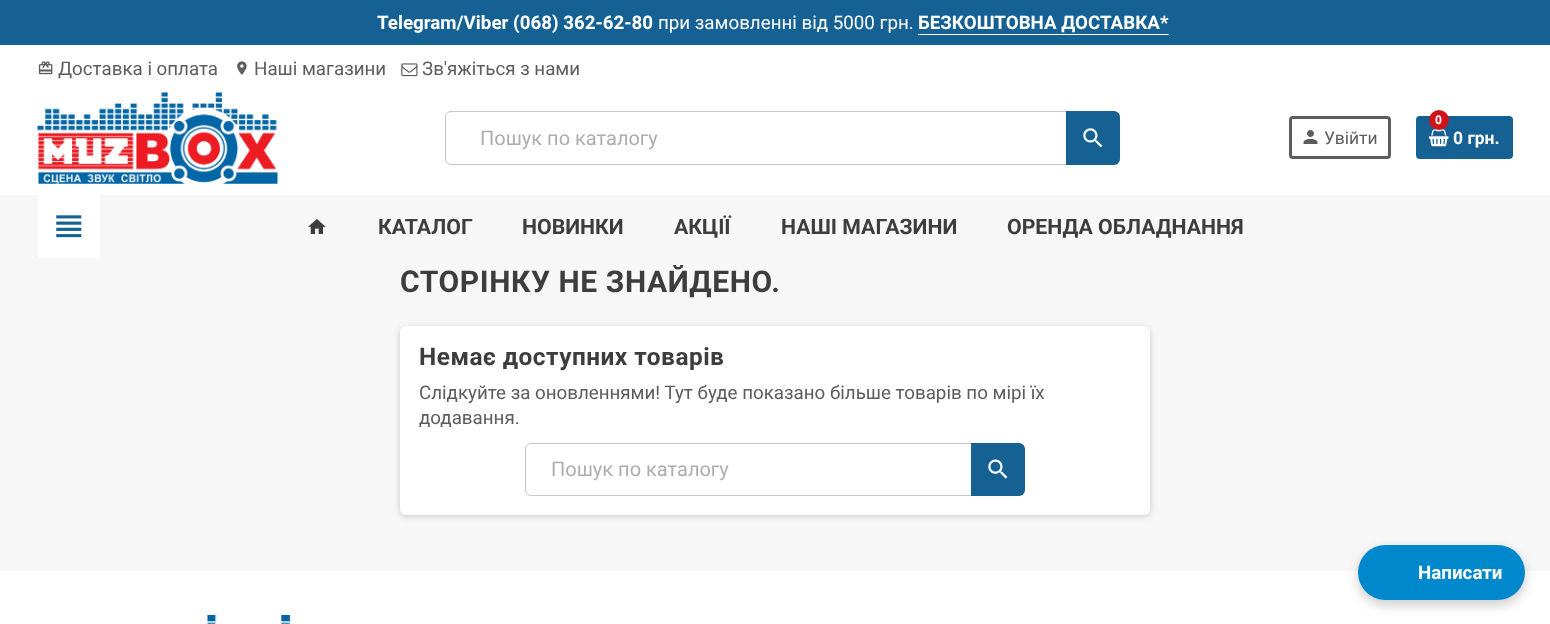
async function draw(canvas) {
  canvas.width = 1550;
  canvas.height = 624;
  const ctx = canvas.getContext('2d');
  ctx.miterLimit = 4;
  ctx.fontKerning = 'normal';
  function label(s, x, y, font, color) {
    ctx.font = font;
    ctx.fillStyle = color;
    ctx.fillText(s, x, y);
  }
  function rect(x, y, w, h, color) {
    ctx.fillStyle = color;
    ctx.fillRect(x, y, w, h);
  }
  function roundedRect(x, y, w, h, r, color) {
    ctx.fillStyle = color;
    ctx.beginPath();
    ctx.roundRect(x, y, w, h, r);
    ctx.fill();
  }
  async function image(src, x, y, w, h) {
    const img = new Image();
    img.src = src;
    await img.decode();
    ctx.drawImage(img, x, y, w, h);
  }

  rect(0, 0, 1550, 624, '#fff');
  rect(0, 0, 1550, 45, '#156193');
  label('Telegram/Viber (068) 362-62-80', 377, 29, 'bold 18.75px Roboto', '#fff');
  label('при замовленні від 5000 грн.', 658, 29, '18.75px Roboto', '#fff');
  label('БЕЗКОШТОВНА ДОСТАВКА*', 918, 29, 'bold 18.75px Roboto', '#fff');
  rect(918, 34, 251, 1, '#fff');
  await image('assets/img1.png', 38, 61, 15, 14);
  label('Доставка і оплата', 58, 75, '18.75px Roboto', '#5d5d5d');
  await image('assets/img2.png', 237, 61, 10, 14);
  label('Наші магазини', 254, 75, '18.75px Roboto', '#5d5d5d');
  await image('assets/img3.png', 401, 63, 17, 14);
  label('Зв\'яжіться з нами', 422, 75, '18.75px Roboto', '#5d5d5d');
  await image('assets/img4.png', 37, 92, 241, 92);
  ctx.beginPath();
  ctx.roundRect(445.5, 111.5, 673, 53, 5.5);
  ctx.strokeStyle = '#c7c7c7';
  ctx.stroke();
  label('Пошук по каталогу', 480, 145, '20px Roboto', '#aeaeae');
  ctx.fillStyle = '#156193';
  ctx.beginPath();
  ctx.roundRect(1066, 111, 54, 54, [0, 6, 6, 0]);
  ctx.fill();
  await image('assets/img5.png', 1083, 128, 20, 20);
  ctx.beginPath();
  ctx.roundRect(1290.5, 117.5, 99, 40, 2.5);
  ctx.strokeStyle = '#5d5d5d';
  ctx.lineWidth = 3;
  ctx.stroke();
  await image('assets/img6.png', 1303, 130, 15, 14);
  label('Увійти', 1324, 144, '17.5px Roboto', '#5d5d5d');
  roundedRect(1416, 116, 97, 43, 4, '#156193');
  await image('assets/img7.png', 1428, 129, 21, 18);
  ctx.fillStyle = '#d0121a';
  ctx.beginPath();
  ctx.arc(1439, 120, 10, 0, 2 * Math.PI);
  ctx.fill();
  label('0', 1435, 124, 'bold 12px Roboto', '#fff');
  label('0 грн.', 1453, 144, 'bold 17.5px Roboto', '#fff');
  rect(0, 195, 1550, 376, '#f7f7f7');
  rect(38, 195, 62, 63, '#fff');
  await image('assets/img8.png', 56, 215, 26, 23);
  await image('assets/img9.png', 308, 219, 18, 15);
  label('КАТАЛОГ', 378, 234, 'bold 21.25px "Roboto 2"', '#3d3d3d');
  label('НОВИНКИ', 522, 234, 'bold 21.25px "Roboto 2"', '#3d3d3d');
  label('АКЦІЇ', 674, 234, 'bold 21.25px "Roboto 2"', '#3d3d3d');
  label('НАШІ МАГАЗИНИ', 781, 234, 'bold 21.25px "Roboto 2"', '#3d3d3d');
  label('ОРЕНДА ОБЛАДНАННЯ', 1007, 234, 'bold 21.25px "Roboto 2"', '#3d3d3d');
  ctx.letterSpacing = '0.6px';
  label('СТОРІНКУ НЕ ЗНАЙДЕНО.', 400, 292, 'bold 30px "Roboto 2"', '#3d3d3d');
  ctx.fillStyle = '#00000033';
  ctx.filter = 'blur(3px)';
  ctx.beginPath();
  ctx.roundRect(400, 328, 750, 188, 6);
  ctx.fill();
  ctx.filter = 'none';
  roundedRect(400, 326, 750, 189, 6, '#fff');
  ctx.letterSpacing = '0.5px';
  label('Немає доступних товарів', 419, 365, 'bold 24.4px "Roboto 2"', '#3d3d3d');
  ctx.letterSpacing = '0px';
  label('Слідкуйте за оновленнями! Тут буде показано більше товарів по мірі їх', 419, 399, '18.75px Roboto', '#5d5d5d');
  label('додавання.', 419, 424, '18.75px Roboto', '#5d5d5d');
  ctx.beginPath();
  ctx.roundRect(525.5, 443.5, 498, 52, 5.5);
  ctx.strokeStyle = '#c7c7c7';
  ctx.lineWidth = 1;
  ctx.stroke();
  label('Пошук по каталогу', 551, 476, '20px Roboto', '#aeaeae');
  ctx.fillStyle = '#156193';
  ctx.beginPath();
  ctx.roundRect(971, 443, 54, 53, [0, 6, 6, 0]);
  ctx.fill();
  await image('assets/img10.png', 988, 459, 20, 20);
  ctx.fillStyle = '#00000033';
  ctx.filter = 'blur(6px)';
  ctx.beginPath();
  ctx.roundRect(1358, 550, 167, 55, 27.5);
  ctx.fill();
  ctx.filter = 'none';
  roundedRect(1358, 545, 167, 55, 27.5, '#08c');
  label('Написати', 1418, 579, 'bold 18.75px Roboto', '#fff');
  await image('assets/img11.png', 206, 615, 85, 9);
}

draw(document.querySelector('canvas'));
